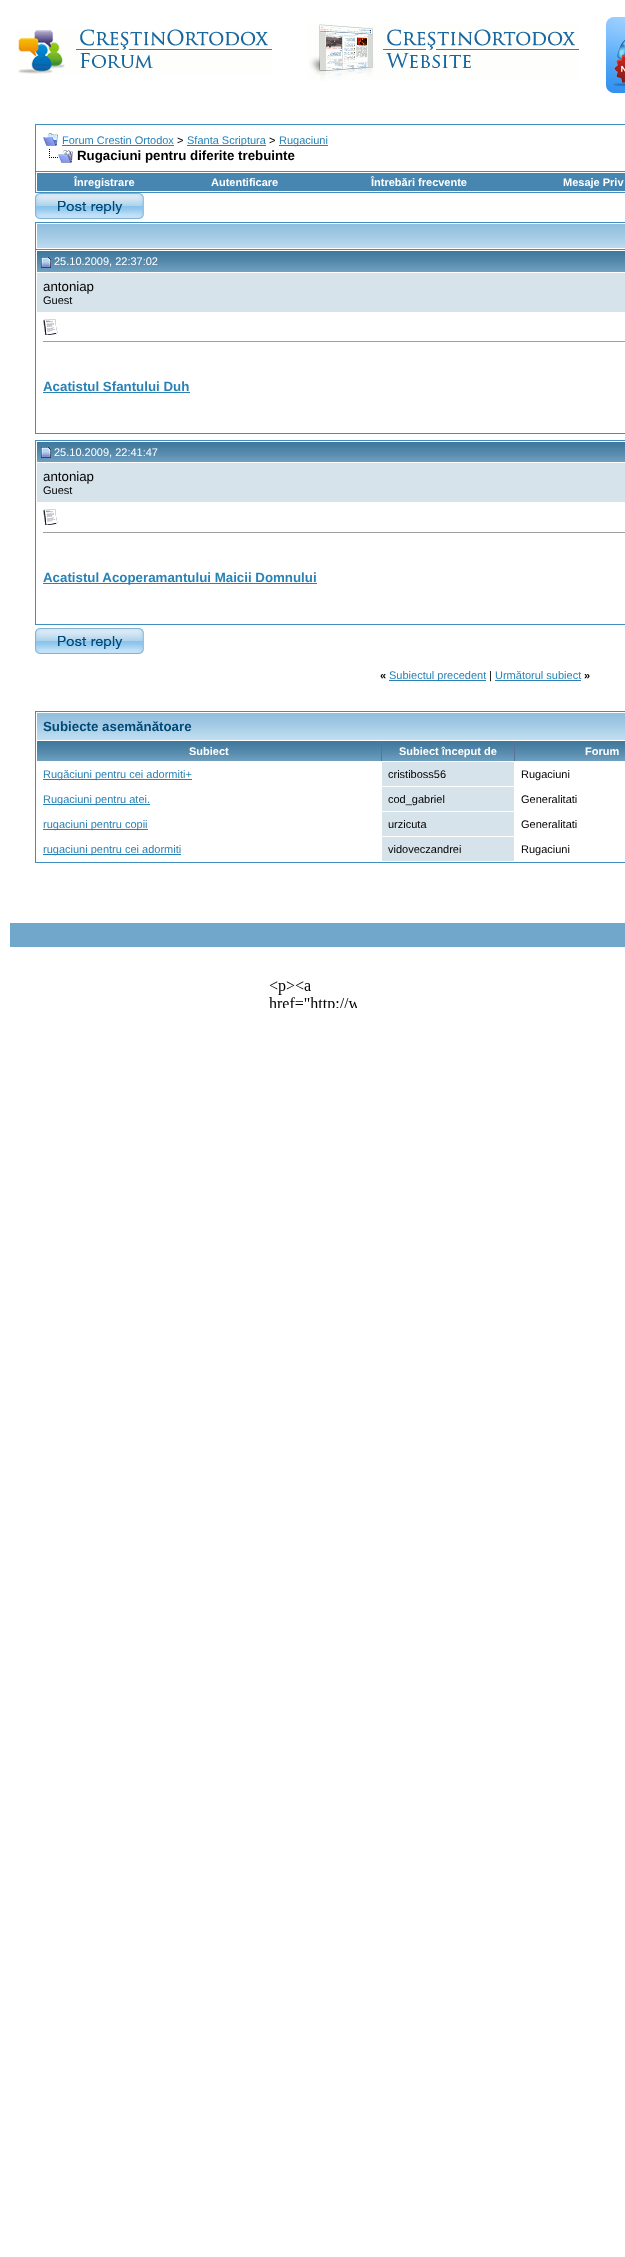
async function draw(canvas) {
  canvas.width = 625;
  canvas.height = 2257;
  const ctx = canvas.getContext('2d');
  ctx.miterLimit = 4;
  ctx.fontKerning = 'normal';
  function label(s, x, y, font, color) {
    ctx.font = font;
    ctx.fillStyle = color;
    ctx.fillText(s, x, y);
  }
  function rect(x, y, w, h, color) {
    ctx.fillStyle = color;
    ctx.fillRect(x, y, w, h);
  }
  async function image(src, x, y, w, h) {
    const img = new Image();
    img.src = src;
    await img.decode();
    ctx.drawImage(img, x, y, w, h);
  }

  rect(0, 0, 625, 2257, '#fff');
  await image('assets/img1.png', 18, 29, 254, 45);
  await image('assets/img2.png', 308, 24, 271, 57);
  await image('assets/img3.png', 606, 17, 19, 76);
  ctx.strokeStyle = '#3f90be';
  ctx.strokeRect(35.5, 124.5, 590, 47);
  await image('assets/img4.png', 43, 133, 15, 13);
  label('Forum Crestin Ortodox', 62, 144, '11px Liberation Sans', '#2982b6');
  rect(62, 145, 112, 1, '#2982b6');
  label('>', 177, 144, '11px Liberation Sans', '#000');
  rect(187, 145, 79, 1, '#2982b6');
  label('Sfanta Scriptura', 187, 144, '11px Liberation Sans', '#2982b6');
  label('>', 269, 144, '11px Liberation Sans', '#000');
  rect(279, 145, 49, 1, '#2982b6');
  label('Rugaciuni', 279, 144, '11px Liberation Sans', '#2982b6');
  await image('assets/img5.png', 49, 149, 24, 14);
  label('Rugaciuni pentru diferite trebuinte', 77, 160, 'bold 13.3px Liberation Sans', '#000');
  rect(35, 192, 590, 1, '#3f90be');
  rect(35, 172, 1, 21, '#3f90be');
  rect(37, 173, 588, 18, '#4686b0');
  label('Înregistrare', 74, 186, 'bold 11px Liberation Sans', '#fff');
  label('Autentificare', 211, 186, 'bold 11px Liberation Sans', '#fff');
  label('Întrebări frecvente', 371, 186, 'bold 11px Liberation Sans', '#fff');
  label('Mesaje Priv', 563, 186, 'bold 11px Liberation Sans', '#fff');
  await image('assets/img6.png', 35, 193, 109, 26);
  rect(35, 222, 590, 1, '#3f90be');
  rect(35, 222, 1, 27, '#3f90be');
  await image('assets/img7.png', 37, 224, 588, 24);
  ctx.strokeRect(35.5, 249.5, 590, 184);
  await image('assets/img8.png', 37, 251, 588, 21);
  await image('assets/img9.png', 41, 257, 10, 11);
  label('25.10.2009, 22:37:02', 54, 265, '11px Liberation Sans', '#fff');
  rect(37, 273, 588, 39, '#d6e3eb');
  label('antoniap', 43, 291, '13.3px Liberation Sans', '#000');
  label('Guest', 43, 304, '11px Liberation Sans', '#000');
  await image('assets/img10.png', 43, 319, 15, 16);
  rect(43, 341, 582, 1, '#9f9f9f');
  label('Acatistul Sfantului Duh', 43, 391, 'bold 13.3px Liberation Sans', '#2982b6');
  rect(43, 392, 147, 1, '#2982b6');
  ctx.strokeRect(35.5, 440.5, 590, 184);
  await image('assets/img11.png', 37, 442, 588, 20);
  await image('assets/img12.png', 41, 447, 10, 11);
  label('25.10.2009, 22:41:47', 54, 456, '11px Liberation Sans', '#fff');
  rect(37, 463, 588, 39, '#d6e3eb');
  label('antoniap', 43, 481, '13.3px Liberation Sans', '#000');
  label('Guest', 43, 494, '11px Liberation Sans', '#000');
  await image('assets/img10.png', 43, 509, 15, 16);
  rect(43, 532, 582, 1, '#9f9f9f');
  rect(43, 583, 274, 1, '#2982b6');
  label('Acatistul Acoperamantului Maicii Domnului', 43, 582, 'bold 13.3px Liberation Sans', '#2982b6');
  await image('assets/img6.png', 35, 628, 109, 26);
  label('«', 380, 679, 'bold 11px Liberation Sans', '#000');
  rect(389, 680, 97, 1, '#2982b6');
  label('Subiectul precedent', 389, 679, '11px Liberation Sans', '#2982b6');
  label('|', 489, 679, '11px Liberation Sans', '#000');
  label('Următorul subiect', 495, 679, '11px Liberation Sans', '#2982b6');
  rect(495, 680, 86, 1, '#2982b6');
  label('»', 584, 679, 'bold 11px Liberation Sans', '#000');
  ctx.strokeRect(35.5, 711.5, 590, 151);
  await image('assets/img13.png', 37, 713, 588, 27);
  label('Subiecte asemănătoare', 43, 731, 'bold 13.3px Liberation Sans', '#004976');
  rect(381, 741, 134, 20, '#5c7099');
  await image('assets/img14.png', 37, 741, 344, 20);
  label('Subiect', 189, 755, 'bold 11px Liberation Sans', '#fff');
  await image('assets/img15.png', 382, 741, 132, 20);
  label('Subiect început de', 399, 755, 'bold 11px Liberation Sans', '#fff');
  await image('assets/img16.png', 515, 741, 110, 20);
  label('Forum', 585, 755, 'bold 11px Liberation Sans', '#fff');
  rect(43, 779, 149, 1, '#2982b6');
  label('Rugăciuni pentru cei adormiti+', 43, 778, '11px Liberation Sans', '#2982b6');
  rect(382, 762, 132, 24, '#d6e3eb');
  label('cristiboss56', 388, 778, '11px Liberation Sans', '#000');
  label('Rugaciuni', 521, 778, '11px Liberation Sans', '#000');
  rect(43, 804, 107, 1, '#2982b6');
  label('Rugaciuni pentru atei.', 43, 803, '11px Liberation Sans', '#2982b6');
  rect(382, 787, 132, 24, '#d6e3eb');
  label('cod_gabriel', 388, 803, '11px Liberation Sans', '#000');
  label('Generalitati', 521, 803, '11px Liberation Sans', '#000');
  rect(43, 829, 105, 1, '#2982b6');
  label('rugaciuni pentru copii', 43, 828, '11px Liberation Sans', '#2982b6');
  rect(382, 812, 132, 24, '#d6e3eb');
  label('urzicuta', 388, 828, '11px Liberation Sans', '#000');
  label('Generalitati', 521, 828, '11px Liberation Sans', '#000');
  rect(43, 854, 138, 1, '#2982b6');
  label('rugaciuni pentru cei adormiti', 43, 853, '11px Liberation Sans', '#2982b6');
  rect(382, 837, 132, 24, '#d6e3eb');
  label('vidoveczandrei', 388, 853, '11px Liberation Sans', '#000');
  label('Rugaciuni', 521, 853, '11px Liberation Sans', '#000');
  rect(10, 923, 615, 24, '#70a7ca');
  await image('assets/img17.png', 269, 981, 88, 27);
}

draw(document.querySelector('canvas'));
